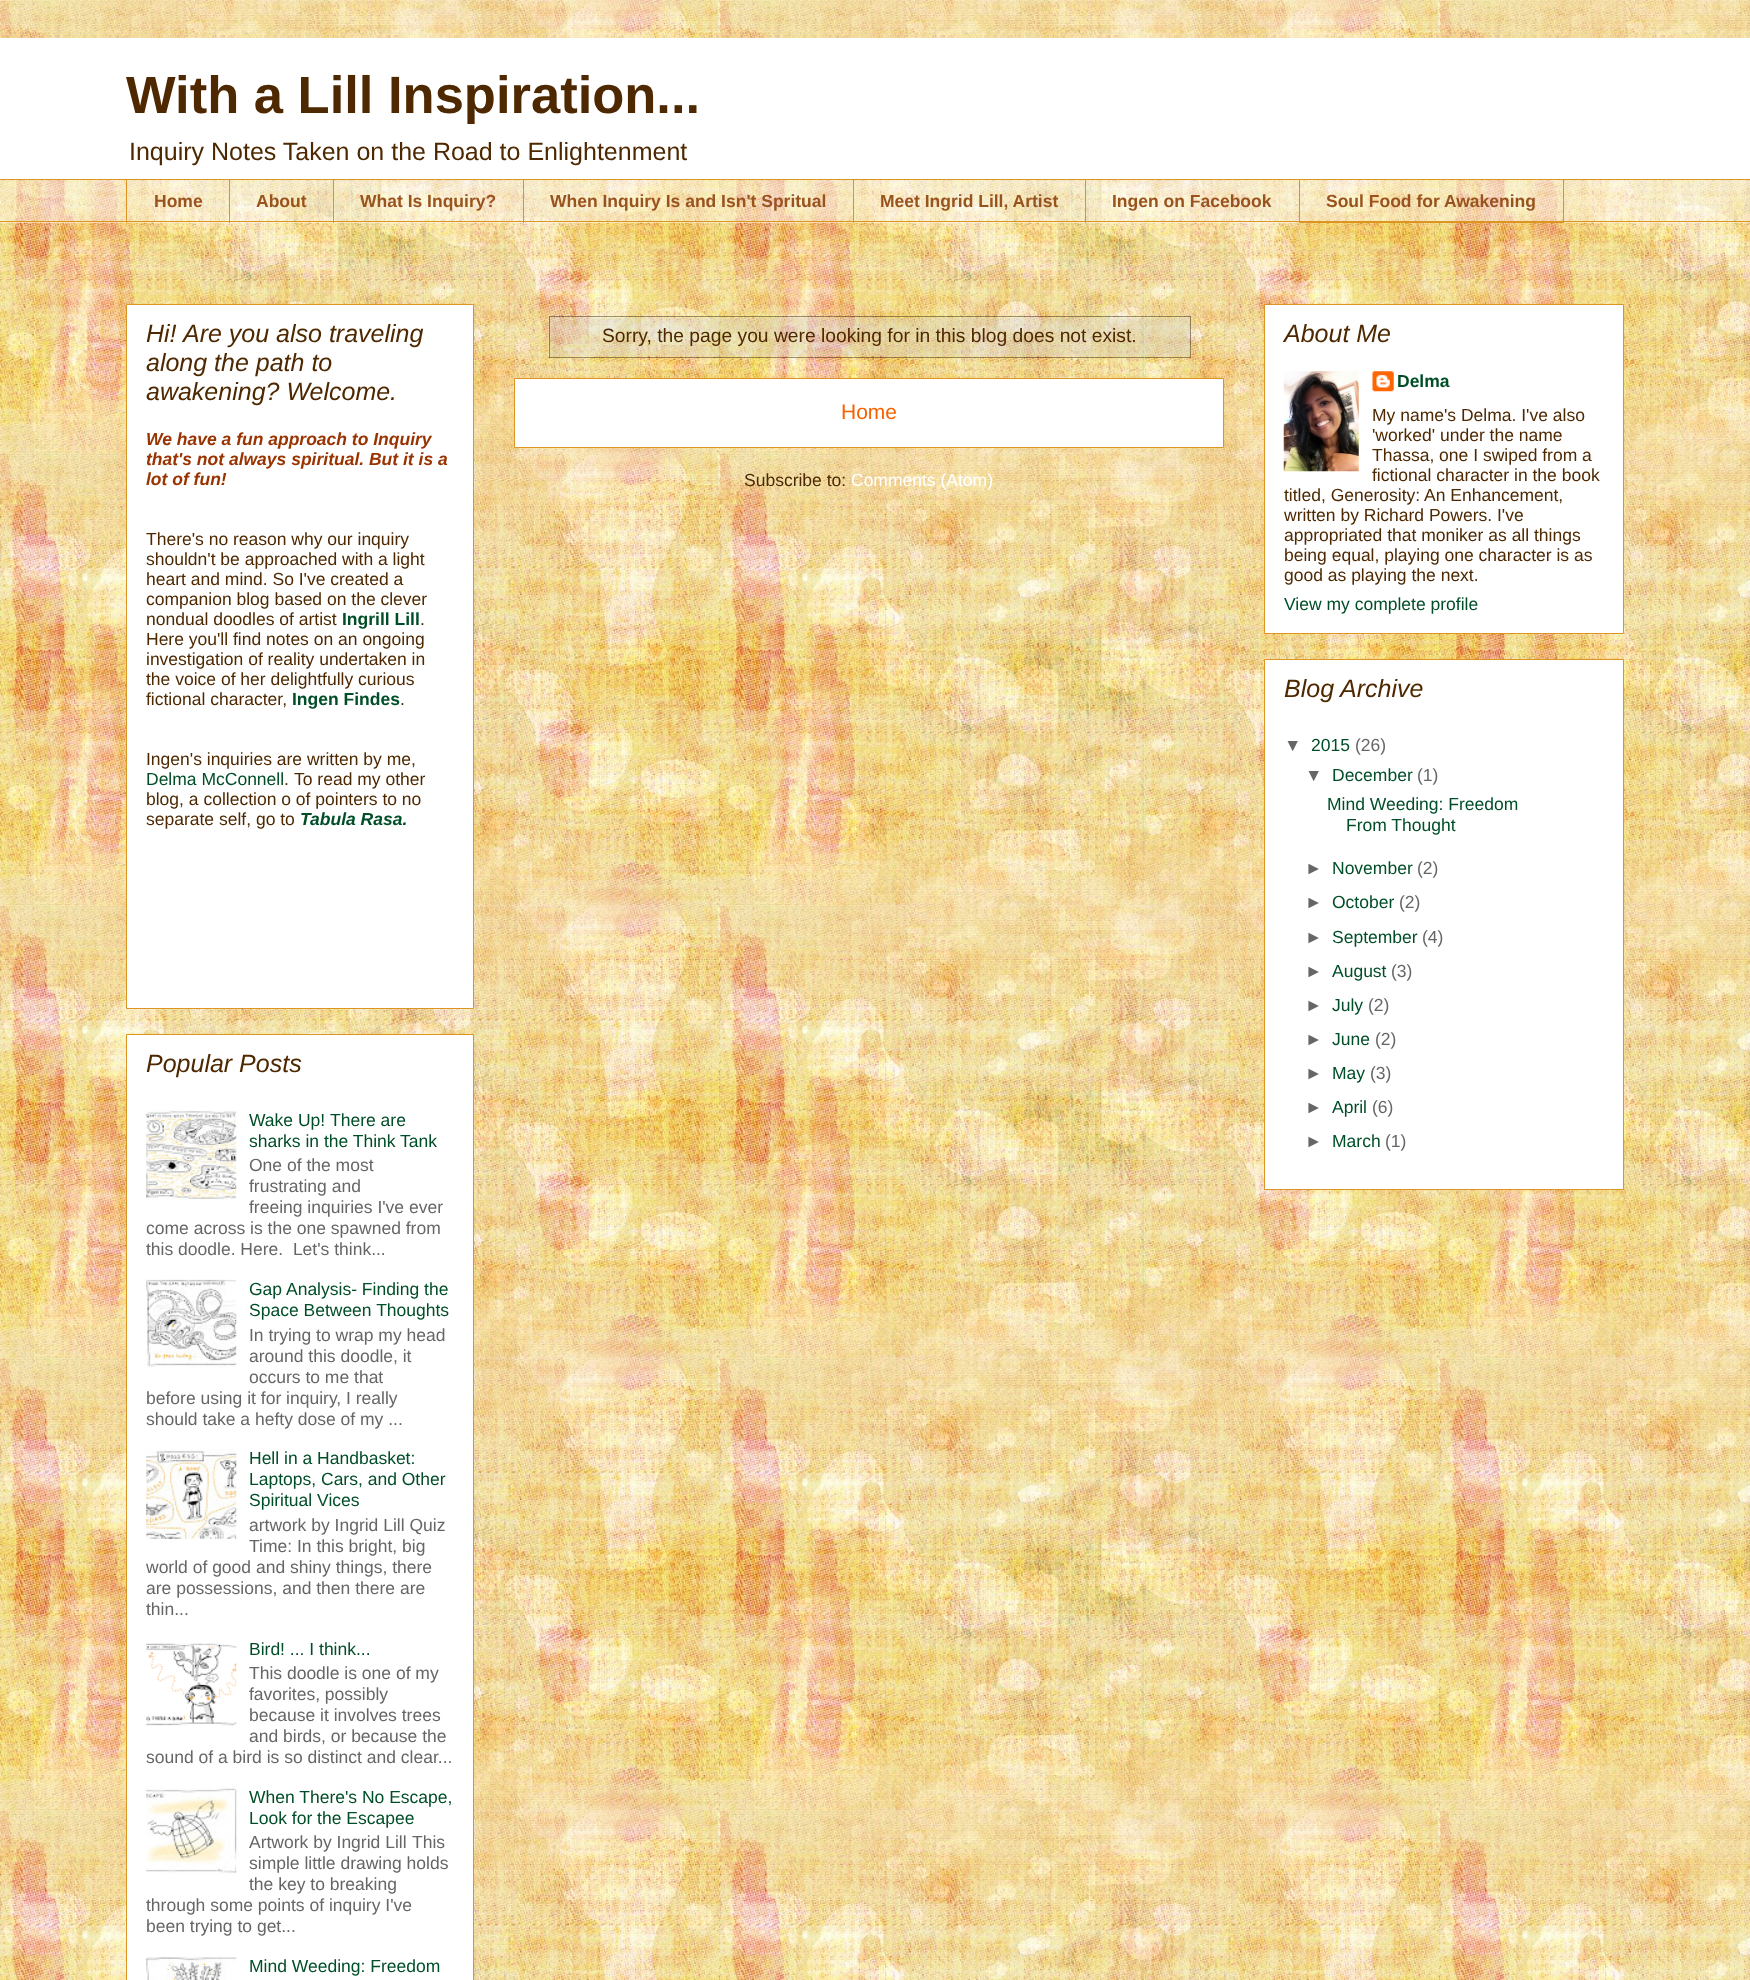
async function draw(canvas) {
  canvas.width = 1750;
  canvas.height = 1980;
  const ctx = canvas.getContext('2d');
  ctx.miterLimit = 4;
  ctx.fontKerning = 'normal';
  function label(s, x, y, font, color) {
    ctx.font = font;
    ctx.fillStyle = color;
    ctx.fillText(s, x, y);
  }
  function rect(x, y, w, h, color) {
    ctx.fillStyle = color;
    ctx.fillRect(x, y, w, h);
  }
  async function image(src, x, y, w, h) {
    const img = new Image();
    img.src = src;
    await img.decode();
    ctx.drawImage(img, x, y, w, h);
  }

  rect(0, 0, 1750, 1980, '#fff');
  await image('assets/img1.png', 0, 0, 1750, 1980);
  rect(0, 38, 1750, 141, '#fff');
  label('With a Lill Inspiration...', 126, 113, 'bold 52.5px Liberation Sans', '#4e2800');
  label('Inquiry Notes Taken on the Road to Enlightenment', 129, 160, '25px Liberation Sans', '#4e2800');
  rect(0, 180, 1750, 43, '#ffffff7d');
  rect(0, 179, 1750, 1, '#dc9522');
  rect(126, 179, 1, 44, '#dc9522');
  label('Home', 154, 207, 'bold 17.5px Liberation Sans', '#99531e');
  rect(229, 179, 1, 44, '#dc9522');
  label('About', 256, 207, 'bold 17.5px Liberation Sans', '#99531e');
  rect(333, 179, 1, 44, '#dc9522');
  label('What Is Inquiry?', 360, 207, 'bold 17.5px Liberation Sans', '#99531e');
  rect(523, 179, 1, 44, '#dc9522');
  label('When Inquiry Is and Isn\'t Spritual', 550, 207, 'bold 17.5px Liberation Sans', '#99531e');
  rect(853, 179, 1, 44, '#dc9522');
  label('Meet Ingrid Lill, Artist', 880, 207, 'bold 17.5px Liberation Sans', '#99531e');
  rect(1085, 179, 1, 44, '#dc9522');
  label('Ingen on Facebook', 1112, 207, 'bold 17.5px Liberation Sans', '#99531e');
  ctx.strokeStyle = '#dc9522';
  ctx.strokeRect(1299.5, 179.5, 264, 43);
  label('Soul Food for Awakening', 1326, 207, 'bold 17.5px Liberation Sans', '#99531e');
  rect(0, 221, 1750, 1, '#dc9522');
  ctx.fillStyle = '#fff';
  ctx.beginPath();
  ctx.rect(126.5, 304.5, 347, 704);
  ctx.fill();
  ctx.stroke();
  label('Hi!', 146, 342, 'italic 25px Liberation Sans', '#4e2800');
  label('Are you also traveling', 183, 342, 'italic 25px Liberation Sans', '#4e2800');
  label('along the path to', 146, 371, 'italic 25px Liberation Sans', '#4e2800');
  label('awakening? Welcome.', 146, 400, 'italic 25px Liberation Sans', '#4e2800');
  label('We have a fun approach to Inquiry', 146, 445, 'italic bold 17.5px Liberation Sans', '#930');
  label('that\'s not always spiritual. But it is a', 146, 465, 'italic bold 17.5px Liberation Sans', '#930');
  label('lot of fun!', 146, 485, 'italic bold 17.5px Liberation Sans', '#930');
  label('There\'s no reason why our inquiry', 146, 545, '17.5px Liberation Sans', '#4e2800');
  label('shouldn\'t be approached with a light', 146, 565, '17.5px Liberation Sans', '#4e2800');
  label('heart and mind. So I\'ve created a', 146, 585, '17.5px Liberation Sans', '#4e2800');
  label('companion blog based on the clever', 146, 605, '17.5px Liberation Sans', '#4e2800');
  label('nondual doodles of artist', 146, 625, '17.5px Liberation Sans', '#4e2800');
  label('Ingrill Lill', 342, 625, 'bold 17.5px Liberation Sans', '#004e28');
  label('.', 420, 625, '17.5px Liberation Sans', '#4e2800');
  label('Here you\'ll find notes on an ongoing', 146, 645, '17.5px Liberation Sans', '#4e2800');
  label('investigation of reality undertaken in', 146, 665, '17.5px Liberation Sans', '#4e2800');
  label('the voice of her delightfully curious', 146, 685, '17.5px Liberation Sans', '#4e2800');
  label('fictional character,', 146, 705, '17.5px Liberation Sans', '#4e2800');
  label('Ingen Findes', 292, 705, 'bold 17.5px Liberation Sans', '#004e28');
  label('.', 400, 705, '17.5px Liberation Sans', '#4e2800');
  label('Ingen\'s inquiries are written by me,', 146, 765, '17.5px Liberation Sans', '#4e2800');
  label('Delma McConnell', 146, 785, '17.5px Liberation Sans', '#004e28');
  label('.', 284, 785, '17.5px Liberation Sans', '#4e2800');
  label('To read my other', 294, 785, '17.5px Liberation Sans', '#4e2800');
  label('blog, a collection o of pointers to no', 146, 805, '17.5px Liberation Sans', '#4e2800');
  label('separate self, go to', 146, 825, '17.5px Liberation Sans', '#4e2800');
  label('Tabula Rasa.', 300, 825, 'italic bold 17.5px Liberation Sans', '#004e28');
  ctx.fillStyle = '#fff';
  ctx.beginPath();
  ctx.rect(126.5, 1034.5, 347, 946);
  ctx.fill();
  ctx.stroke();
  label('Popular Posts', 146, 1072, 'italic 25px Liberation Sans', '#4e2800');
  await image('assets/img2.png', 146, 1110, 91, 90);
  label('Wake Up!', 249, 1126, '17.5px Liberation Sans', '#004e28');
  label('There are', 330, 1126, '17.5px Liberation Sans', '#004e28');
  label('sharks in the Think Tank', 249, 1147, '17.5px Liberation Sans', '#004e28');
  label('One of the most', 249, 1171, '17.5px Liberation Sans', '#666');
  label('frustrating and', 249, 1192, '17.5px Liberation Sans', '#666');
  label('freeing inquiries I\'ve ever', 249, 1213, '17.5px Liberation Sans', '#666');
  label('come across is the one spawned from', 146, 1234, '17.5px Liberation Sans', '#666');
  label('this doodle. Here.  Let\'s think...', 146, 1255, '17.5px Liberation Sans', '#666');
  await image('assets/img3.png', 146, 1279, 91, 90);
  label('Gap Analysis- Finding the', 249, 1295, '17.5px Liberation Sans', '#004e28');
  label('Space Between Thoughts', 249, 1316, '17.5px Liberation Sans', '#004e28');
  label('In trying to wrap my head', 249, 1341, '17.5px Liberation Sans', '#666');
  label('around this doodle, it', 249, 1362, '17.5px Liberation Sans', '#666');
  label('occurs to me that', 249, 1383, '17.5px Liberation Sans', '#666');
  label('before using it for inquiry, I really', 146, 1404, '17.5px Liberation Sans', '#666');
  label('should take a hefty dose of my ...', 146, 1425, '17.5px Liberation Sans', '#666');
  await image('assets/img4.png', 146, 1449, 91, 90);
  label('Hell in a Handbasket:', 249, 1464, '17.5px Liberation Sans', '#004e28');
  label('Laptops, Cars, and Other', 249, 1485, '17.5px Liberation Sans', '#004e28');
  label('Spiritual Vices', 249, 1506, '17.5px Liberation Sans', '#004e28');
  label('artwork by Ingrid Lill Quiz', 249, 1531, '17.5px Liberation Sans', '#666');
  label('Time: In this bright, big', 249, 1552, '17.5px Liberation Sans', '#666');
  label('world of good and shiny things, there', 146, 1573, '17.5px Liberation Sans', '#666');
  label('are possessions, and then there are', 146, 1594, '17.5px Liberation Sans', '#666');
  label('thin...', 146, 1615, '17.5px Liberation Sans', '#666');
  await image('assets/img5.png', 146, 1643, 91, 83);
  label('Bird! ... I think...', 249, 1655, '17.5px Liberation Sans', '#004e28');
  label('This doodle is one of my', 249, 1679, '17.5px Liberation Sans', '#666');
  label('favorites, possibly', 249, 1700, '17.5px Liberation Sans', '#666');
  label('because it involves trees', 249, 1721, '17.5px Liberation Sans', '#666');
  label('and birds, or because the', 249, 1742, '17.5px Liberation Sans', '#666');
  label('sound of a bird is so distinct and clear...', 146, 1763, '17.5px Liberation Sans', '#666');
  await image('assets/img6.png', 146, 1786, 91, 89);
  label('When There\'s No Escape,', 249, 1803, '17.5px Liberation Sans', '#004e28');
  label('Look for the Escapee', 249, 1824, '17.5px Liberation Sans', '#004e28');
  label('Artwork by Ingrid Lill', 249, 1848, '17.5px Liberation Sans', '#666');
  label('This', 412, 1848, '17.5px Liberation Sans', '#666');
  label('simple little drawing holds', 249, 1869, '17.5px Liberation Sans', '#666');
  label('the key to breaking', 249, 1890, '17.5px Liberation Sans', '#666');
  label('through some points of inquiry I\'ve', 146, 1911, '17.5px Liberation Sans', '#666');
  label('been trying to get...', 146, 1932, '17.5px Liberation Sans', '#666');
  await image('assets/img7.png', 146, 1956, 91, 24);
  label('Mind Weeding: Freedom', 249, 1972, '17.5px Liberation Sans', '#004e28');
  ctx.strokeStyle = '#00000066';
  ctx.strokeRect(549.5, 316.5, 641, 41);
  rect(550, 318, 640, 38, '#cccccc52');
  label('Sorry, the page you were looking for in this blog does not exist.', 602, 342, '19.25px Liberation Sans', '#4e2800');
  ctx.fillStyle = '#fff';
  ctx.beginPath();
  ctx.rect(514.5, 378.5, 709, 69);
  ctx.fill();
  ctx.strokeStyle = '#dc9522';
  ctx.stroke();
  label('Home', 841, 419, '21px Liberation Sans', '#f76200');
  label('Subscribe to:', 744, 486, '17.5px Liberation Sans', '#4e2800');
  label('Comments (Atom)', 851, 486, '17.5px Liberation Sans', '#fff');
  ctx.beginPath();
  ctx.rect(1264.5, 304.5, 359, 329);
  ctx.fill();
  ctx.stroke();
  label('About Me', 1284, 342, 'italic 25px Liberation Sans', '#4e2800');
  await image('assets/img8.png', 1283, 371, 76, 101);
  await image('assets/img9.png', 1372, 371, 22, 21);
  label('Delma', 1397, 387, 'bold 17.5px Liberation Sans', '#004e28');
  label('My name\'s Delma. I\'ve also', 1372, 421, '17.5px Liberation Sans', '#4e2800');
  label('\'worked\' under the name', 1372, 441, '17.5px Liberation Sans', '#4e2800');
  label('Thassa, one I swiped from a', 1372, 461, '17.5px Liberation Sans', '#4e2800');
  label('fictional character in the book', 1372, 481, '17.5px Liberation Sans', '#4e2800');
  label('titled, Generosity: An Enhancement,', 1284, 501, '17.5px Liberation Sans', '#4e2800');
  label('written by Richard Powers. I\'ve', 1284, 521, '17.5px Liberation Sans', '#4e2800');
  label('appropriated that moniker as all things', 1284, 541, '17.5px Liberation Sans', '#4e2800');
  label('being equal, playing one character is as', 1284, 561, '17.5px Liberation Sans', '#4e2800');
  label('good as playing the next.', 1284, 581, '17.5px Liberation Sans', '#4e2800');
  label('View my complete profile', 1284, 610, '17.5px Liberation Sans', '#004e28');
  ctx.fillStyle = '#fff';
  ctx.beginPath();
  ctx.rect(1264.5, 659.5, 359, 530);
  ctx.fill();
  ctx.stroke();
  label('Blog Archive', 1284, 697, 'italic 25px Liberation Sans', '#4e2800');
  label('▼', 1284, 751, '17.5px Liberation Sans', '#666');
  label('2015', 1311, 751, '17.5px Liberation Sans', '#004e28');
  label('(26)', 1355, 751, '17.5px Liberation Sans', '#666');
  label('▼', 1305, 781, '17.5px Liberation Sans', '#666');
  label('December', 1332, 781, '17.5px Liberation Sans', '#004e28');
  label('(1)', 1417, 781, '17.5px Liberation Sans', '#666');
  label('Mind Weeding: Freedom', 1327, 810, '17.5px Liberation Sans', '#004e28');
  label('From Thought', 1346, 831, '17.5px Liberation Sans', '#004e28');
  label('►', 1305, 874, '17.5px Liberation Sans', '#666');
  label('November', 1332, 874, '17.5px Liberation Sans', '#004e28');
  label('(2)', 1417, 874, '17.5px Liberation Sans', '#666');
  label('►', 1305, 908, '17.5px Liberation Sans', '#666');
  label('October', 1332, 908, '17.5px Liberation Sans', '#004e28');
  label('(2)', 1399, 908, '17.5px Liberation Sans', '#666');
  label('►', 1305, 943, '17.5px Liberation Sans', '#666');
  label('September', 1332, 943, '17.5px Liberation Sans', '#004e28');
  label('(4)', 1422, 943, '17.5px Liberation Sans', '#666');
  label('►', 1305, 977, '17.5px Liberation Sans', '#666');
  label('August', 1332, 977, '17.5px Liberation Sans', '#004e28');
  label('(3)', 1391, 977, '17.5px Liberation Sans', '#666');
  label('►', 1305, 1011, '17.5px Liberation Sans', '#666');
  label('July', 1332, 1011, '17.5px Liberation Sans', '#004e28');
  label('(2)', 1368, 1011, '17.5px Liberation Sans', '#666');
  label('►', 1305, 1045, '17.5px Liberation Sans', '#666');
  label('June', 1332, 1045, '17.5px Liberation Sans', '#004e28');
  label('(2)', 1375, 1045, '17.5px Liberation Sans', '#666');
  label('►', 1305, 1079, '17.5px Liberation Sans', '#666');
  label('May', 1332, 1079, '17.5px Liberation Sans', '#004e28');
  label('(3)', 1370, 1079, '17.5px Liberation Sans', '#666');
  label('►', 1305, 1113, '17.5px Liberation Sans', '#666');
  label('April', 1332, 1113, '17.5px Liberation Sans', '#004e28');
  label('(6)', 1372, 1113, '17.5px Liberation Sans', '#666');
  label('►', 1305, 1147, '17.5px Liberation Sans', '#666');
  label('March', 1332, 1147, '17.5px Liberation Sans', '#004e28');
  label('(1)', 1385, 1147, '17.5px Liberation Sans', '#666');
}

draw(document.querySelector('canvas'));
